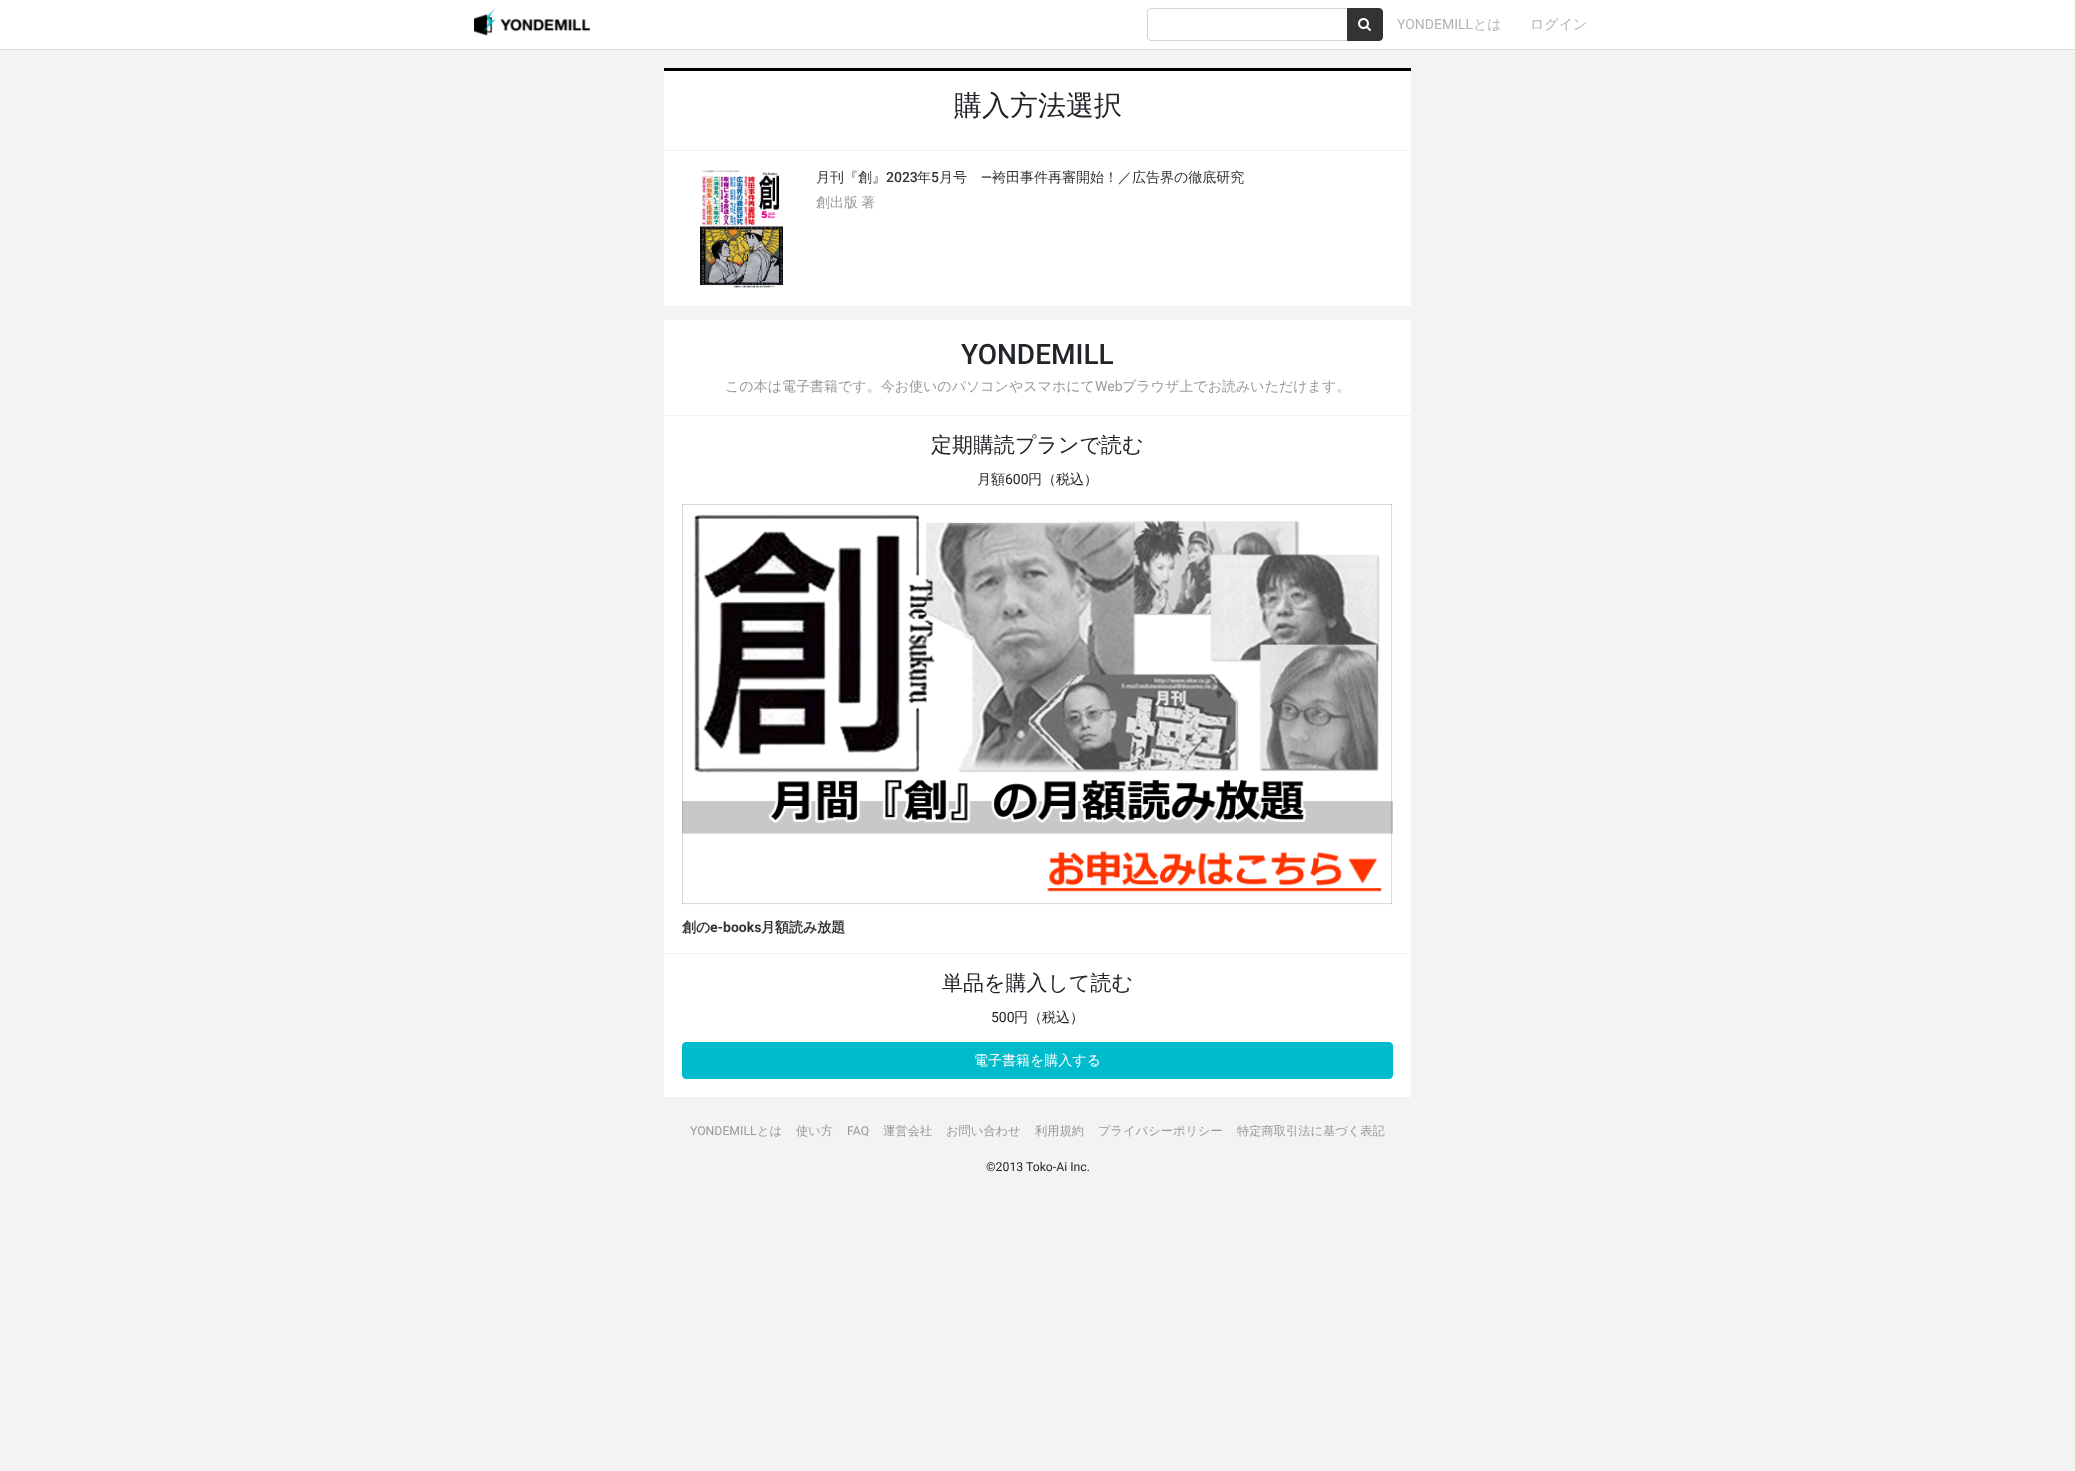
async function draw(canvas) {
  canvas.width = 2075;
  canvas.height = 1471;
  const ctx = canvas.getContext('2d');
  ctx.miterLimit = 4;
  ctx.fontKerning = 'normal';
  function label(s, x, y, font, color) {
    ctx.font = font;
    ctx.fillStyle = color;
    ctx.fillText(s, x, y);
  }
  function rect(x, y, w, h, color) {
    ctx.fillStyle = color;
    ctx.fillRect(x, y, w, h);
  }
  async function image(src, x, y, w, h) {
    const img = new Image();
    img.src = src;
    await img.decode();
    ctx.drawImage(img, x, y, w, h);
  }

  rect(0, 0, 2075, 1471, '#f3f3f3');
  rect(0, 0, 2075, 49, '#fff');
  rect(0, 49, 2075, 1, '#ddd');
  await image('assets/img1.png', 474, 8, 116, 28);
  ctx.beginPath();
  ctx.roundRect(1147.5, 8.5, 200, 32, [3.5, 0, 0, 3.5]);
  ctx.strokeStyle = '#ced4da';
  ctx.stroke();
  ctx.fillStyle = '#333';
  ctx.beginPath();
  ctx.roundRect(1347.5, 8.5, 35, 32, [0, 3.5, 3.5, 0]);
  ctx.fill();
  ctx.strokeStyle = '#333';
  ctx.stroke();
  await image('assets/img2.png', 1358, 18, 13, 13);
  label('YONDEMILL', 1397, 29, '14px Roboto', '#b3b3b3');
  label('とは', 1473, 29, '500 14px WenQuanYi Zen Hei', '#b3b3b3');
  label('ログイン', 1530, 29, '500 14px WenQuanYi Zen Hei', '#b3b3b3');
  rect(664, 71, 747, 235, '#fff');
  rect(664, 68, 747, 3, '#000');
  rect(664, 150, 747, 1, '#f3f3f3');
  label('購入方法選択', 954, 115, '500 28px WenQuanYi Zen Hei', '#212529');
  await image('assets/img3.png', 700, 170, 83, 118);
  label('月刊『創』', 816, 182, '500 14px WenQuanYi Zen Hei', '#333');
  label('2023', 886, 182, '500 14px Roboto', '#333');
  label('年', 917, 182, '500 14px WenQuanYi Zen Hei', '#333');
  label('5', 931, 182, '500 14px Roboto', '#333');
  label('月号', 939, 182, '500 14px WenQuanYi Zen Hei', '#333');
  label('―', 981, 182, '500 14px Roboto', '#333');
  label('袴田事件再審開始！／広告界の徹底研究', 992, 182, '500 14px WenQuanYi Zen Hei', '#333');
  ctx.wordSpacing = '-1px';
  label('創出版 著', 816, 207, '500 14px WenQuanYi Zen Hei', '#999');
  rect(664, 320, 747, 777, '#fff');
  rect(664, 415, 747, 1, '#f3f3f3');
  ctx.wordSpacing = '0px';
  label('YONDEMILL', 961, 364, '500 28px Roboto', '#212529');
  label('この本は電子書籍です。今お使いのパソコンやスマホにて', 725, 391, '500 14px WenQuanYi Zen Hei', '#999');
  label('Web', 1095, 391, '14px Roboto', '#999');
  label('ブラウザ上でお読みいただけます。', 1122, 391, '500 14px WenQuanYi Zen Hei', '#999');
  rect(664, 953, 747, 1, '#f3f3f3');
  label('定期購読プランで読む', 931, 452, '500 21px WenQuanYi Zen Hei', '#212529');
  label('月額', 977, 484, '500 14px WenQuanYi Zen Hei', '#212529');
  label('600', 1005, 484, '14px Roboto', '#212529');
  label('円（税込）', 1028, 484, '500 14px WenQuanYi Zen Hei', '#212529');
  await image('assets/img4.png', 682, 504, 711, 401);
  label('創の', 682, 932, 'bold 14px WenQuanYi Zen Hei', '#333');
  label('e-books', 710, 932, 'bold 14px Roboto', '#333');
  label('月額読み放題', 761, 932, 'bold 14px WenQuanYi Zen Hei', '#333');
  label('単品を購入して読む', 942, 990, '500 21px WenQuanYi Zen Hei', '#212529');
  label('500', 991, 1022, '14px Roboto', '#212529');
  label('円（税込）', 1014, 1022, '500 14px WenQuanYi Zen Hei', '#212529');
  ctx.fillStyle = '#0bc';
  ctx.beginPath();
  ctx.roundRect(682.5, 1042.5, 710, 36, 3.5);
  ctx.fill();
  ctx.strokeStyle = '#0bc';
  ctx.stroke();
  label('電子書籍を購入する', 974, 1065, '500 14px WenQuanYi Zen Hei', '#fff');
  label('YONDEMILL', 690, 1135, '12.25px Roboto', '#999');
  label('とは', 757, 1135, '500 12.25px WenQuanYi Zen Hei', '#999');
  label('使い方', 796, 1135, '500 12.25px WenQuanYi Zen Hei', '#999');
  label('FAQ', 847, 1135, '12.25px Roboto', '#999');
  label('運営会社', 883, 1135, '500 12.25px WenQuanYi Zen Hei', '#999');
  label('お問い合わせ', 946, 1135, '500 12.25px WenQuanYi Zen Hei', '#999');
  label('利用規約', 1035, 1135, '500 12.25px WenQuanYi Zen Hei', '#999');
  label('プライバシーポリシー', 1098, 1135, '500 12.25px WenQuanYi Zen Hei', '#999');
  label('特定商取引法に基づく表記', 1237, 1135, '500 12.25px WenQuanYi Zen Hei', '#999');
  label('©2013 Toko-Ai Inc.', 986, 1171, '12.25px Roboto', '#212529');
}

draw(document.querySelector('canvas'));
